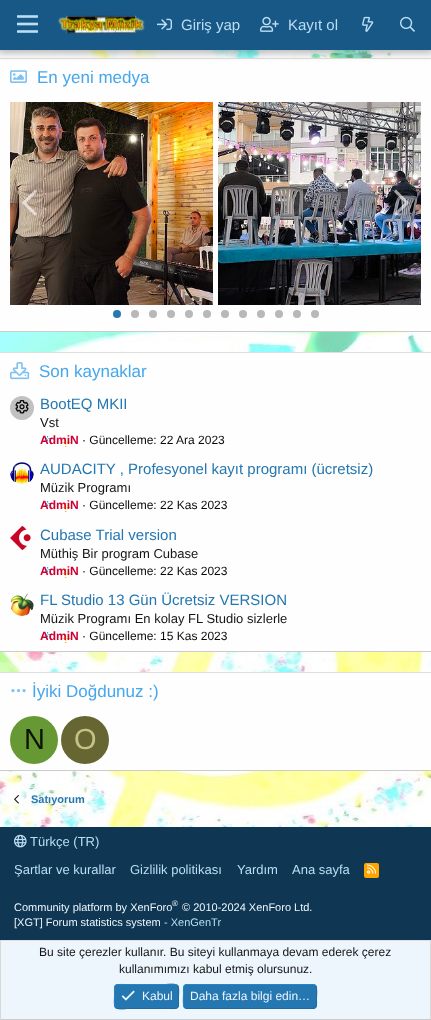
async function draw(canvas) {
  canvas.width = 431;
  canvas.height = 1020;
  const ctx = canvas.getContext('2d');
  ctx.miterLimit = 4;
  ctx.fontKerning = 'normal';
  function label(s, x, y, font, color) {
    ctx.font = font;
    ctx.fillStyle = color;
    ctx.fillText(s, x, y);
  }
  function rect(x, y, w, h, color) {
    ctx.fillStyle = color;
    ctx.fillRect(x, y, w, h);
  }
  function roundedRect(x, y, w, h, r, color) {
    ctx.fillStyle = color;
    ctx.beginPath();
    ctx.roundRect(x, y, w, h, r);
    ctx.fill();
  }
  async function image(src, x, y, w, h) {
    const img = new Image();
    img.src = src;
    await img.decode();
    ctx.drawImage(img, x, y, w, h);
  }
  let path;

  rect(0, 0, 431, 1020, '#fff');
  await image('assets/img1.png', 0, 50, 431, 777);
  rect(0, 59, 431, 272, '#fefefe');
  rect(0, 58, 431, 1, '#dfdfdf');
  ctx.fillStyle = '#0000004d';
  ctx.filter = 'blur(4px)';
  ctx.beginPath();
  ctx.rect(-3, -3, 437, 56);
  ctx.fill();
  ctx.filter = 'none';
  rect(0, 0, 431, 50, '#185886');
  await image('assets/img2.png', 17, 15, 21, 18);
  await image('assets/img3.png', 58, 15, 87, 19);
  await image('assets/img4.png', 157, 18, 15, 12);
  label('Giriş yap', 181, 30, '15px Liberation Sans', '#bcdef5');
  await image('assets/img5.png', 260, 16, 19, 16);
  label('Kayıt ol', 288, 30, '15px Liberation Sans', '#bcdef5');
  await image('assets/img6.png', 362, 16, 12, 16);
  await image('assets/img7.png', 400, 16, 15, 16);
  rect(0, 331, 431, 1, '#cbcbcb');
  await image('assets/img8.png', 10, 70, 17, 13);
  label('En yeni medya', 37, 83, '17px Liberation Sans', '#47a7eb');
  await image('assets/img9.png', 10, 102, 203, 203);
  await image('assets/img10.png', 218, 102, 203, 203);
  await image('assets/img11.png', 22, 189, 15, 27);
  await image('assets/img12.png', 394, 189, 15, 27);
  ctx.fillStyle = '#2577b1';
  ctx.beginPath();
  ctx.arc(117, 314, 4, 0, 2 * Math.PI);
  ctx.fill();
  ctx.fillStyle = '#b8b8b8';
  ctx.beginPath();
  ctx.arc(135, 314, 4, 0, 2 * Math.PI);
  ctx.fill();
  ctx.beginPath();
  ctx.arc(153, 314, 4, 0, 2 * Math.PI);
  ctx.fill();
  ctx.beginPath();
  ctx.arc(171, 314, 4, 0, 2 * Math.PI);
  ctx.fill();
  ctx.beginPath();
  ctx.arc(189, 314, 4, 0, 2 * Math.PI);
  ctx.fill();
  ctx.beginPath();
  ctx.arc(207, 314, 4, 0, 2 * Math.PI);
  ctx.fill();
  ctx.beginPath();
  ctx.arc(225, 314, 4, 0, 2 * Math.PI);
  ctx.fill();
  ctx.beginPath();
  ctx.arc(243, 314, 4, 0, 2 * Math.PI);
  ctx.fill();
  ctx.beginPath();
  ctx.arc(261, 314, 4, 0, 2 * Math.PI);
  ctx.fill();
  ctx.beginPath();
  ctx.arc(279, 314, 4, 0, 2 * Math.PI);
  ctx.fill();
  ctx.beginPath();
  ctx.arc(297, 314, 4, 0, 2 * Math.PI);
  ctx.fill();
  ctx.beginPath();
  ctx.arc(315, 314, 4, 0, 2 * Math.PI);
  ctx.fill();
  rect(0, 353, 431, 298, '#fefefe');
  rect(0, 352, 431, 1, '#dfdfdf');
  rect(0, 651, 431, 1, '#cbcbcb');
  await image('assets/img13.png', 10, 362, 20, 18);
  label('Son kaynaklar', 39, 377, '17px Liberation Sans', '#47a7eb');
  ctx.fillStyle = '#c1c1c1';
  ctx.beginPath();
  ctx.arc(22, 408, 12, 0, 2 * Math.PI);
  ctx.fill();
  await image('assets/img14.png', 15, 400, 14, 14);
  label('BootEQ MKII', 40, 409, '15px Liberation Sans', '#2577b1');
  label('Vst', 40, 427, '13px Liberation Sans', '#141414');
  await image('assets/img15.png', 45, 436, 26, 11);
  label('AdmiN', 40, 444, 'bold 12px Liberation Sans', '#ce0033');
  label('· Güncelleme: 22 Ara 2023', 82, 444, '12px Liberation Sans', '#090909');
  await image('assets/img16.png', 10, 462, 24, 23);
  label('AUDACITY , Profesyonel kayıt programı (ücretsiz)', 40, 474, '15px Liberation Sans', '#2577b1');
  label('Müzik Programı', 40, 492, '13px Liberation Sans', '#141414');
  await image('assets/img15.png', 45, 501, 26, 11);
  label('AdmiN', 40, 509, 'bold 12px Liberation Sans', '#ce0033');
  label('· Güncelleme: 22 Kas 2023', 82, 509, '12px Liberation Sans', '#090909');
  await image('assets/img17.png', 10, 526, 21, 24);
  label('Cubase Trial version', 40, 540, '15px Liberation Sans', '#2577b1');
  label('Müthiş Bir program Cubase', 40, 558, '13px Liberation Sans', '#141414');
  await image('assets/img15.png', 45, 567, 26, 11);
  label('AdmiN', 40, 575, 'bold 12px Liberation Sans', '#ce0033');
  label('· Güncelleme: 22 Kas 2023', 82, 575, '12px Liberation Sans', '#090909');
  await image('assets/img18.png', 10, 593, 24, 23);
  label('FL Studio 13 Gün Ücretsiz VERSION', 40, 605, '15px Liberation Sans', '#2577b1');
  label('Müzik Programı En kolay FL Studio sizlerle', 40, 623, '13px Liberation Sans', '#141414');
  await image('assets/img15.png', 45, 632, 26, 11);
  label('AdmiN', 40, 640, 'bold 12px Liberation Sans', '#ce0033');
  label('· Güncelleme: 15 Kas 2023', 82, 640, '12px Liberation Sans', '#090909');
  rect(0, 673, 431, 97, '#fefefe');
  rect(0, 672, 431, 1, '#dfdfdf');
  rect(0, 770, 431, 1, '#cbcbcb');
  await image('assets/img19.png', 11, 689, 15, 4);
  label('İyiki Doğdunuz :)', 32, 697, '17px Liberation Sans', '#47a7eb');
  ctx.fillStyle = '#693';
  ctx.beginPath();
  ctx.arc(34, 740, 24, 0, 2 * Math.PI);
  ctx.fill();
  label('N', 24, 749, '29px Liberation Sans', '#0d1306');
  ctx.fillStyle = '#663';
  ctx.beginPath();
  ctx.arc(85, 740, 24, 0, 2 * Math.PI);
  ctx.fill();
  label('O', 74, 749, '29px Liberation Sans', '#c3c388');
  await image('assets/img20.png', 14, 795, 5, 9);
  label('Satıyorum', 31, 803, 'bold 11px Liberation Sans', '#2577b1');
  rect(0, 827, 431, 113, '#0f3652');
  await image('assets/img21.png', 14, 834, 13, 14);
  label('Türkçe (TR)', 30, 846, '13px Liberation Sans', '#bcdef5');
  label('Şartlar ve kurallar', 14, 874, '13px Liberation Sans', '#bcdef5');
  label('Gizlilik politikası', 130, 874, '13px Liberation Sans', '#bcdef5');
  label('Yardım', 237, 874, '13px Liberation Sans', '#bcdef5');
  label('Ana sayfa', 292, 874, '13px Liberation Sans', '#bcdef5');
  roundedRect(364, 863, 15, 15, 2, '#ffa500');
  await image('assets/img22.png', 367, 864, 10, 10);
  label('Community platform by XenForo', 14, 911, '11px Liberation Sans', '#edf6fd');
  label('®', 172, 906, '8px Liberation Sans', '#edf6fd');
  label('© 2010-2024 XenForo Ltd.', 182, 911, '11px Liberation Sans', '#edf6fd');
  label('[XGT] Forum statistics system', 14, 926, '11px Liberation Sans', '#edf6fd');
  label('- XenGenTr', 164, 926, '11px Liberation Sans', '#bcdef5');
  rect(1, 941, 429, 78, '#edf6fd');
  rect(0, 940, 431, 1, '#dfdfdf');
  rect(430, 940, 1, 80, '#d8d8d8');
  rect(0, 1019, 431, 1, '#cbcbcb');
  rect(0, 940, 1, 80, '#d8d8d8');
  label('Bu site çerezler kullanır. Bu siteyi kullanmaya devam ederek çerez', 39, 956, '12px Liberation Sans', '#141414');
  label('kullanımımızı kabul etmiş olursunuz.', 119, 973, '12px Liberation Sans', '#141414');
  roundedRect(114, 984, 65, 25, 4, '#2577b1');
  path = new Path2D('M177.5 985.5C179.5 988 178.5 994 178.5 996.5C178.5 1010 180 1008.5 165.5 1008.5H127.5C127 1008.5 118 1010 115.5 1007.5');
  ctx.strokeStyle = '#21699c';
  ctx.stroke(path);
  path = new Path2D('M115.5 1007.5C113.5 1005 114.5 999 114.5 996.5C114.5 983 113 984.5 127.5 984.5H165.5C166 984.5 175 983 177.5 985.5');
  ctx.strokeStyle = '#2985c6';
  ctx.stroke(path);
  await image('assets/img23.png', 121, 990, 14, 11);
  label('Kabul', 142, 1000, '12px Liberation Sans', '#edf6fd');
  roundedRect(183, 984, 134, 25, 4, '#2577b1');
  path = new Path2D('M315.5 985.5C317.5 988 316.5 996.5 316.5 999.5C316.5 1002 317.5 1008.5 313 1008.5H187L184.5 1007.5');
  ctx.strokeStyle = '#21699c';
  ctx.stroke(path);
  path = new Path2D('M184.5 1007.5C182.5 1005 183.5 996.5 183.5 993.5C183.5 991 182.5 984.5 187 984.5H313L315.5 985.5');
  ctx.strokeStyle = '#2985c6';
  ctx.stroke(path);
  label('Daha fazla bilgi edin…', 190, 1000, '12px Liberation Sans', '#edf6fd');
}

draw(document.querySelector('canvas'));
